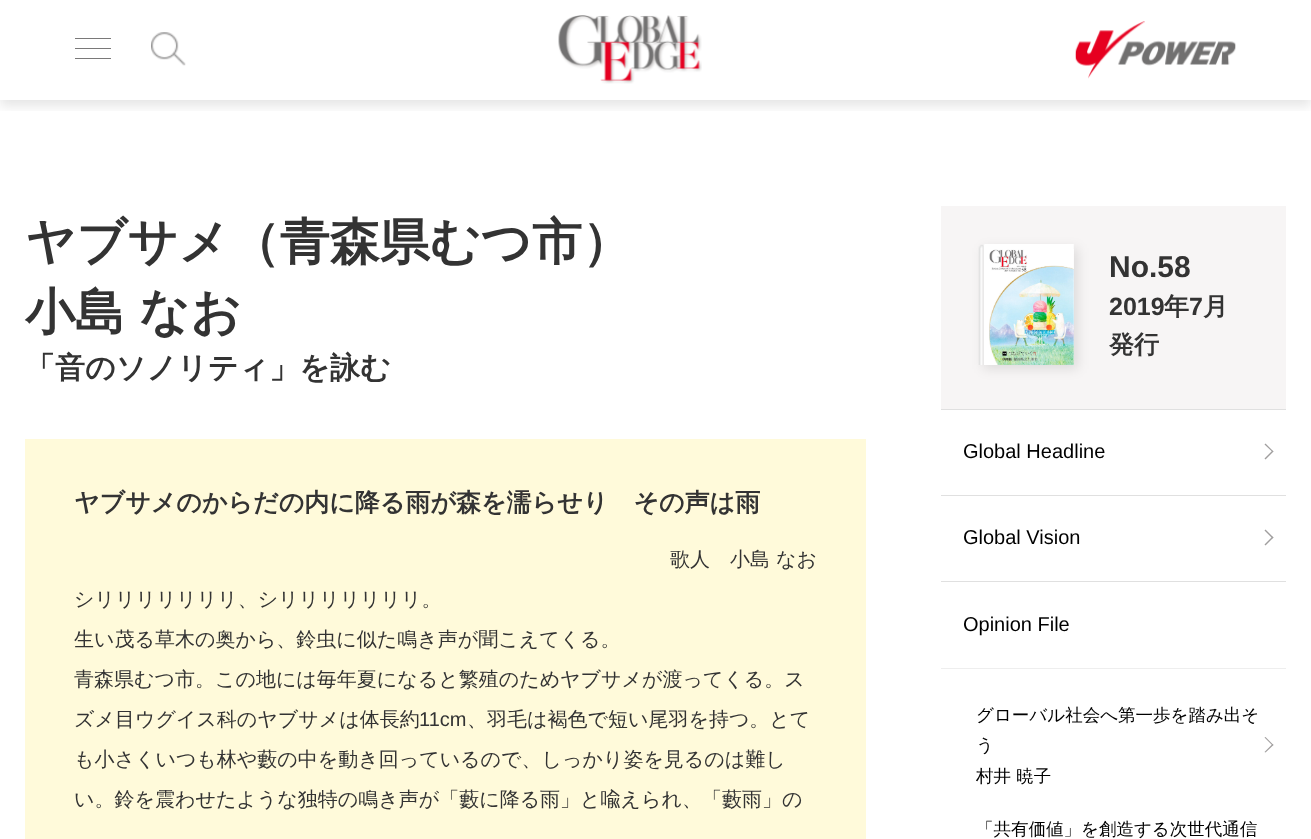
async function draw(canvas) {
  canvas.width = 1311;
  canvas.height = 839;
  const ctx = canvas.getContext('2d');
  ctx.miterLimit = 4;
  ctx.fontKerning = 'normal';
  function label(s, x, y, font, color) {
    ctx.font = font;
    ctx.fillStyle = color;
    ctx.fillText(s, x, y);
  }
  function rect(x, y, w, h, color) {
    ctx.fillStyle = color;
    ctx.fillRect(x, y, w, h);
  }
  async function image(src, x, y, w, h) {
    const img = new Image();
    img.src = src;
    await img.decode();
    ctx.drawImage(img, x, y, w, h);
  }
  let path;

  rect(0, 0, 1311, 839, '#fff');
  ctx.save();
  ctx.beginPath();
  ctx.rect(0, 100, 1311, 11);
  ctx.clip();
  ctx.fillStyle = '#0000001a';
  ctx.filter = 'blur(6px)';
  ctx.beginPath();
  ctx.rect(0, 6, 1311, 100);
  ctx.fill();
  ctx.filter = 'none';
  ctx.restore();
  rect(75, 38, 36, 1, '#7a7979');
  rect(75, 48, 36, 1, '#7a7979');
  rect(75, 58, 36, 1, '#7a7979');
  await image('assets/img1.png', 151, 32, 35, 34);
  await image('assets/img2.png', 558, 15, 144, 69);
  await image('assets/img3.png', 1075, 21, 161, 58);
  label('ヤブサメ（青森県むつ市）', 25, 259, 'bold 50px WenQuanYi Zen Hei', '#333');
  ctx.wordSpacing = '-1px';
  label('小島 なお', 25, 329, 'bold 50px WenQuanYi Zen Hei', '#333');
  ctx.wordSpacing = '0px';
  label('「音のソノリティ」を詠む', 25, 378, 'bold 30px WenQuanYi Zen Hei', '#333');
  rect(25, 439, 841, 400, '#fffada');
  label('ヤブサメのからだの内に降る雨が森を濡らせり　その声は雨', 74, 511, 'bold 25px WenQuanYi Zen Hei', '#333');
  label('歌人　小島 なお', 670, 566, '500 20px WenQuanYi Zen Hei', '#333');
  label('シリリリリリリリ、シリリリリリリリ。', 74, 606, '500 20px WenQuanYi Zen Hei', '#333');
  label('生い茂る草木の奥から、鈴虫に似た鳴き声が聞こえてくる。', 74, 646, '500 20px WenQuanYi Zen Hei', '#333');
  label('青森県むつ市。この地には毎年夏になると繁殖のためヤブサメが渡ってくる。ス', 74, 686, '500 20px WenQuanYi Zen Hei', '#333');
  label('ズメ目ウグイス科のヤブサメは体長約', 74, 726, '500 20px WenQuanYi Zen Hei', '#333');
  label('11cm', 419, 726, '20px Liberation Sans', '#333');
  label('、羽毛は褐色で短い尾羽を持つ。とて', 467, 726, '500 20px WenQuanYi Zen Hei', '#333');
  label('も小さくいつも林や藪の中を動き回っているので、しっかり姿を見るのは難し', 74, 766, '500 20px WenQuanYi Zen Hei', '#333');
  label('い。鈴を震わせたような独特の鳴き声が「藪に降る雨」と喩えられ、「藪雨」の', 74, 806, '500 20px WenQuanYi Zen Hei', '#333');
  rect(941, 206, 345, 203, '#f7f5f5');
  ctx.fillStyle = '#0000001a';
  ctx.filter = 'blur(6px)';
  ctx.beginPath();
  ctx.rect(983, 248, 95, 121);
  ctx.fill();
  ctx.filter = 'none';
  await image('assets/img4.png', 978, 244, 96, 121);
  await image('assets/img5.png', 989, 249, 85, 116);
  label('No.58', 1109, 277, 'bold 30px Liberation Sans', '#333');
  label('2019', 1109, 315, 'bold 25px Liberation Sans', '#333');
  label('年', 1164, 315, 'bold 25px WenQuanYi Zen Hei', '#333');
  label('7', 1189, 315, 'bold 25px Liberation Sans', '#333');
  label('月', 1203, 315, 'bold 25px WenQuanYi Zen Hei', '#333');
  label('発行', 1109, 353, 'bold 25px WenQuanYi Zen Hei', '#333');
  rect(941, 409, 345, 1, '#e0e0e0');
  rect(941, 495, 345, 1, '#e0e0e0');
  label('Global Headline', 963, 458, '20px Liberation Sans', '#000');
  ctx.fillStyle = '#a09e9e';
  path = new Path2D('M1265.5 443.5L1273.5 451.5L1272.5 452L1264.5 444.5Z');
  ctx.fill(path);
  path = new Path2D('M1272.5 450.5L1273.5 451.5L1265.5 459.5L1264.5 458.5Z');
  ctx.fill(path);
  rect(941, 581, 345, 1, '#e0e0e0');
  label('Global Vision', 963, 544, '20px Liberation Sans', '#000');
  ctx.fillStyle = '#a09e9e';
  path = new Path2D('M1265.5 529.5L1273.5 537.5L1272.5 538.5L1264.5 530.5Z');
  ctx.fill(path);
  path = new Path2D('M1272.5 536.5L1273.5 537.5L1265.5 545.5L1264.5 544.5Z');
  ctx.fill(path);
  rect(941, 668, 345, 1, '#eee');
  label('Opinion File', 963, 631, '20px Liberation Sans', '#000');
  label('グローバル社会へ第一歩を踏み出そ', 976, 721, '500 17.5px WenQuanYi Zen Hei', '#000');
  label('う', 976, 751, '500 17.5px WenQuanYi Zen Hei', '#000');
  ctx.fillStyle = '#a09e9e';
  path = new Path2D('M1265.5 737L1273.5 745L1272.5 745.5L1264.5 737.5Z');
  ctx.fill(path);
  path = new Path2D('M1272.5 744L1273.5 745L1265.5 752.5L1264.5 752Z');
  ctx.fill(path);
  label('村井 暁子', 976, 782, '500 17.5px WenQuanYi Zen Hei', '#000');
  label('「共有価値」を創造する次世代通信', 976, 835, '500 17.5px WenQuanYi Zen Hei', '#000');
}

draw(document.querySelector('canvas'));
